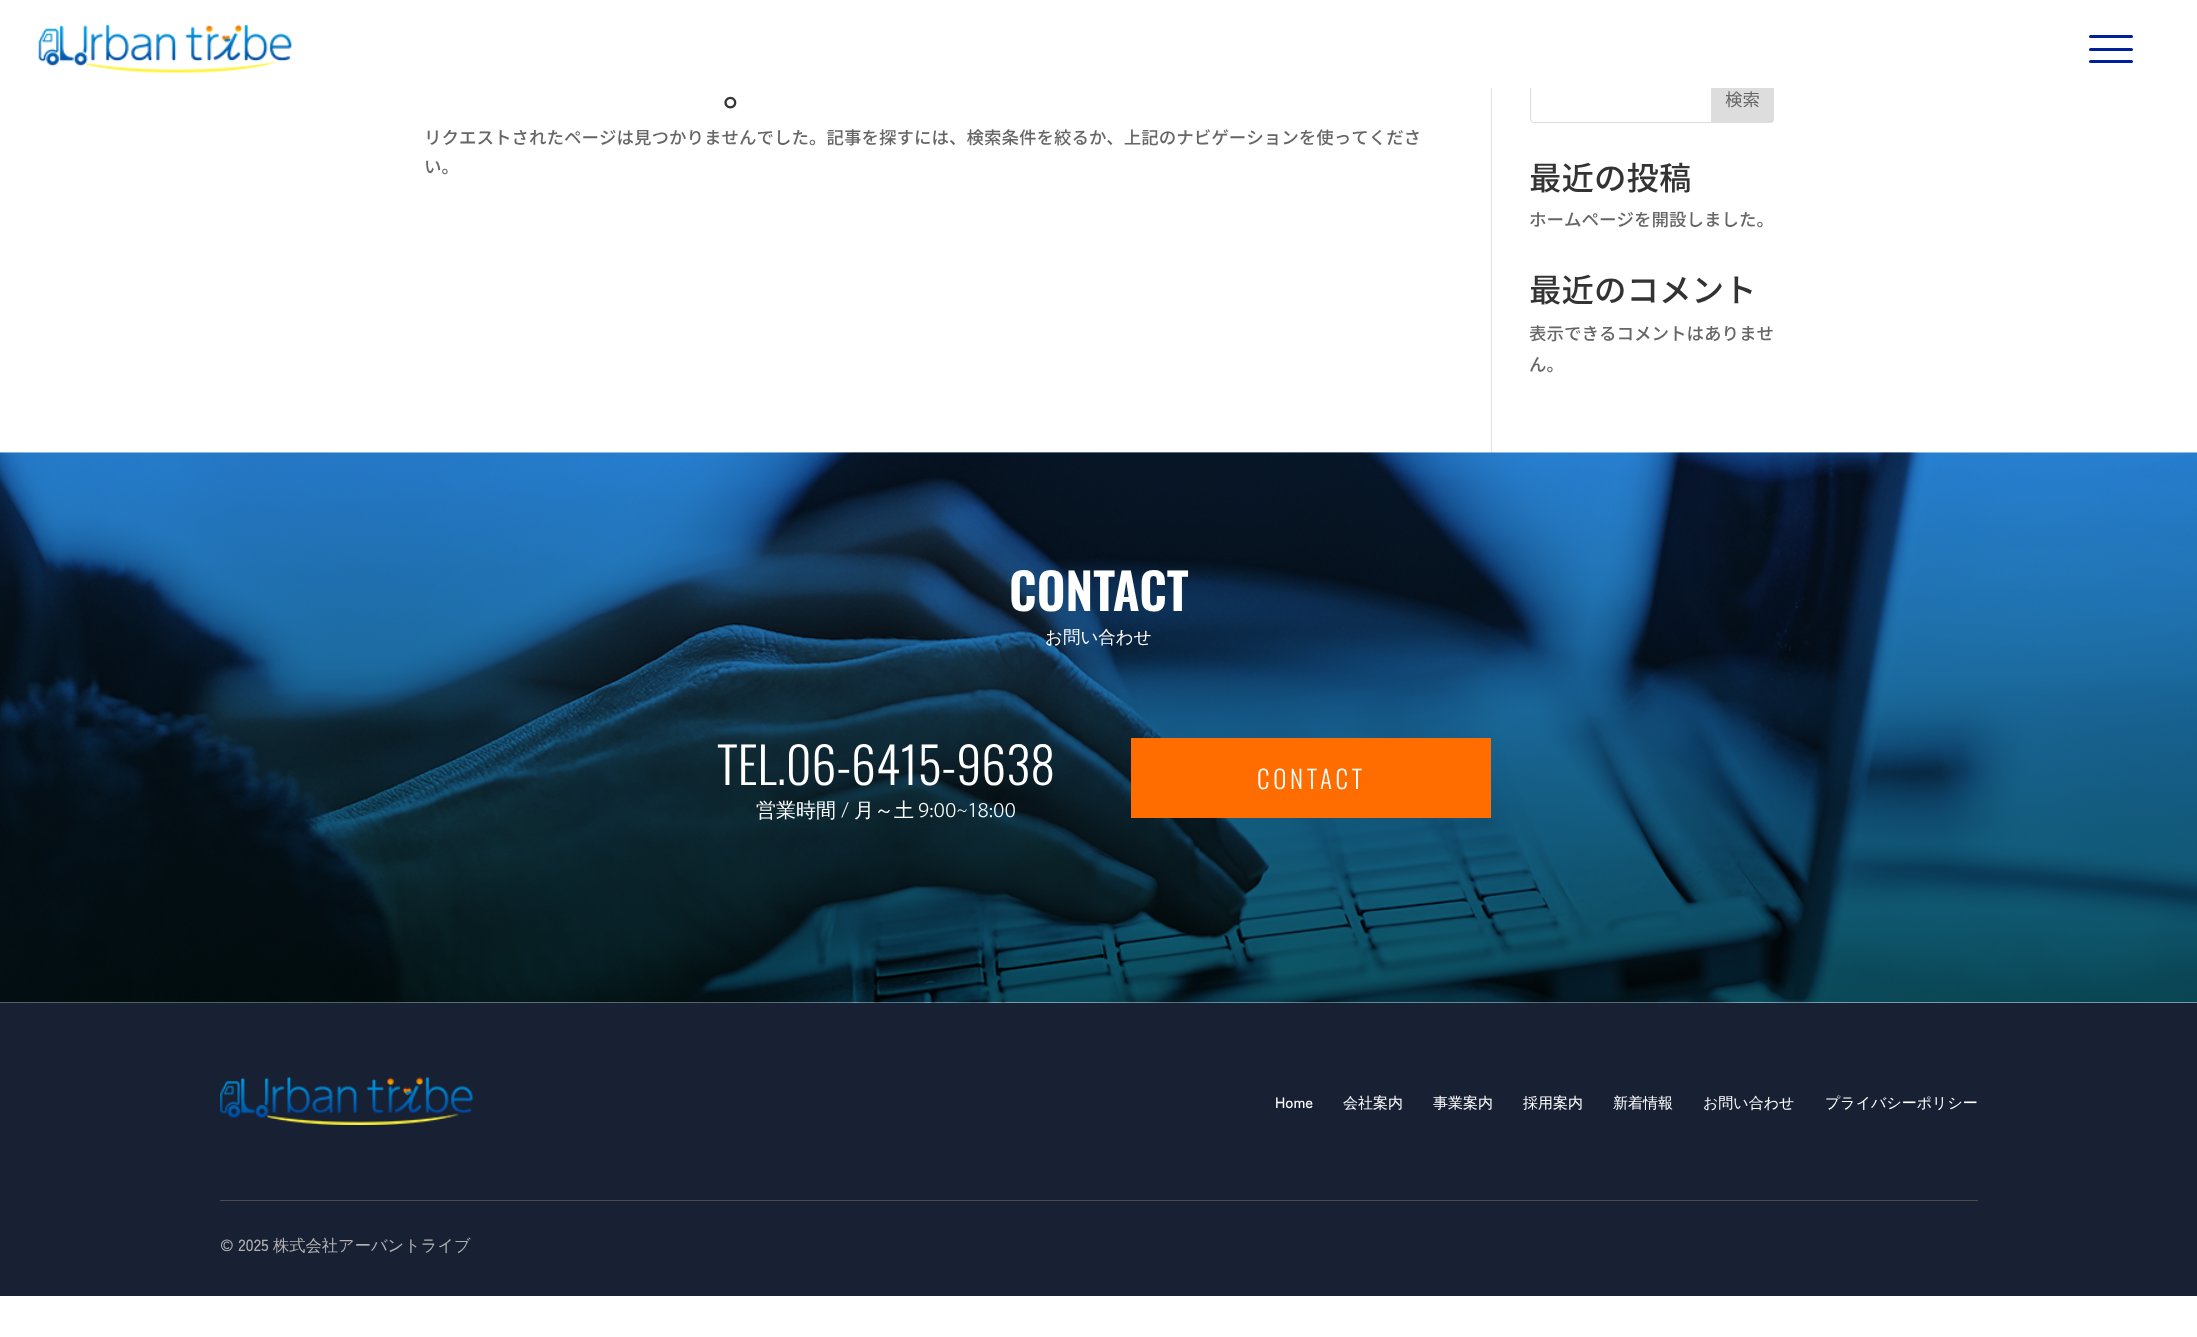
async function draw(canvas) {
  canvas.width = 2197;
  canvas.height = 1337;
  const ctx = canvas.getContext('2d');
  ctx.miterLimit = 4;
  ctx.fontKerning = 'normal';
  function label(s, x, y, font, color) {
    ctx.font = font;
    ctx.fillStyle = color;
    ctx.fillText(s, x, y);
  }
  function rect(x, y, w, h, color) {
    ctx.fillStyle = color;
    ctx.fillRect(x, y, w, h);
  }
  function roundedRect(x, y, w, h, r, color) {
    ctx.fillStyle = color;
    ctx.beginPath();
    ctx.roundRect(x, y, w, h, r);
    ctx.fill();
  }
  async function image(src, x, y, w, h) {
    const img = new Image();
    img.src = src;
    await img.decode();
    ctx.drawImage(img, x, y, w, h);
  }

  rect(0, 0, 2197, 1337, '#fff');
  ctx.beginPath();
  ctx.roundRect(1530.5, 73.5, 243, 49, 3.5);
  ctx.strokeStyle = '#ddd';
  ctx.stroke();
  ctx.fillStyle = '#ddd';
  ctx.beginPath();
  ctx.roundRect(1711.5, 73.5, 62, 49, [0, 3.5, 3.5, 0]);
  ctx.fill();
  ctx.stroke();
  rect(1530, 73, 244, 15, '#fff');
  await image('assets/img1.png', 38, 24, 254, 49);
  roundedRect(2089, 35, 44, 3, 1.5, '#00209b');
  roundedRect(2089, 48, 44, 3, 1.5, '#00209b');
  roundedRect(2089, 60, 44, 3, 1.5, '#00209b');
  rect(1491, 88, 1, 365, '#e2e2e2');
  label('。', 723, 106, '500 38px Noto Sans JP', '#333');
  label('リクエストされたページは見つかりませんでした。記事を探すには、検索条件を絞るか、上記のナビゲーションを使ってくださ', 424, 144, '500 17.5px Noto Sans JP', '#666');
  label('い。', 424, 173, '500 17.5px Noto Sans JP', '#666');
  label('検索', 1725, 106, '17.5px Noto Sans JP', '#666');
  label('最近の投稿', 1529, 190, '500 32.5px Noto Sans JP', '#333');
  label('ホームページを開設しました。', 1529, 226, '500 17.5px Noto Sans JP', '#666');
  label('最近のコメント', 1529, 302, '500 32.5px Noto Sans JP', '#333');
  label('表示できるコメントはありませ', 1529, 340, '500 17.5px Noto Sans JP', '#666');
  label('ん。', 1529, 371, '500 17.5px Noto Sans JP', '#666');
  await image('assets/img2.png', 0, 452, 2197, 551);
  label('CONTACT', 1009, 611, '600 50px Oswald', '#fff');
  label('お問い合わせ', 1045, 643, '500 17.5px WenQuanYi Zen Hei', '#fff');
  label('TEL.06-6415-9638', 717, 785, '300 50px Oswald', '#fff');
  label('営業時間', 756, 817, '500 20px WenQuanYi Zen Hei', '#fff');
  label('/', 841, 817, '100 20px Murecho', '#fff');
  label('月～土', 854, 817, '500 20px WenQuanYi Zen Hei', '#fff');
  label('9:00~18:00', 918, 817, '100 20px Murecho', '#fff');
  rect(1131, 738, 360, 80, '#ff6c00');
  ctx.letterSpacing = '3.75px';
  label('CONTACT', 1257, 789, '300 25px Oswald', '#fff');
  rect(0, 1003, 2197, 293, '#182034');
  rect(220, 1200, 1758, 1, '#4c4c4c');
  await image('assets/img3.png', 220, 1077, 253, 48);
  ctx.letterSpacing = '0px';
  label('Home', 1275, 1108, '500 15px Zen Kaku Gothic New', '#fff');
  label('会社案内', 1343, 1108, '500 15px WenQuanYi Zen Hei', '#fff');
  label('事業案内', 1433, 1108, '500 15px WenQuanYi Zen Hei', '#fff');
  label('採用案内', 1523, 1108, '500 15px WenQuanYi Zen Hei', '#fff');
  label('新着情報', 1613, 1108, '500 15px WenQuanYi Zen Hei', '#fff');
  label('お問い合わせ', 1703, 1108, '500 15px WenQuanYi Zen Hei', '#fff');
  label('プライバシーポリシー', 1825, 1108, '500 15px WenQuanYi Zen Hei', '#fff');
  label('© 2025', 220, 1251, '500 16.25px Zen Kaku Gothic New', '#b1b1b1');
  label('株式会社アーバントライブ', 273, 1251, '500 16.25px WenQuanYi Zen Hei', '#b1b1b1');
}

draw(document.querySelector('canvas'));
